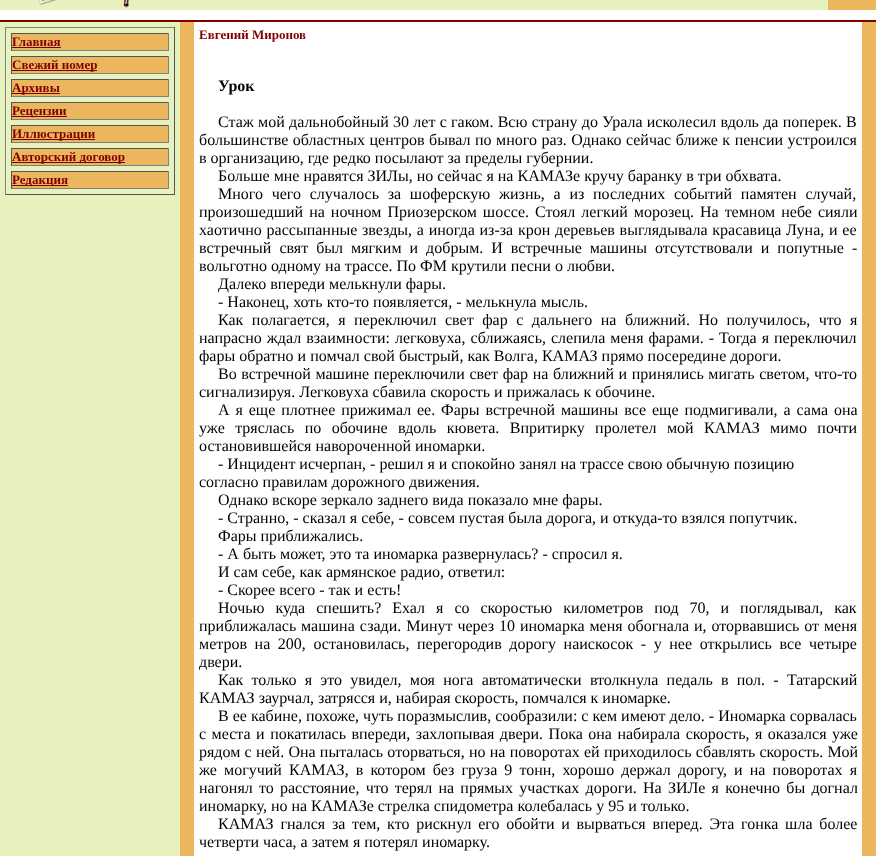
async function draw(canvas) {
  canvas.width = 876;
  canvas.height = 856;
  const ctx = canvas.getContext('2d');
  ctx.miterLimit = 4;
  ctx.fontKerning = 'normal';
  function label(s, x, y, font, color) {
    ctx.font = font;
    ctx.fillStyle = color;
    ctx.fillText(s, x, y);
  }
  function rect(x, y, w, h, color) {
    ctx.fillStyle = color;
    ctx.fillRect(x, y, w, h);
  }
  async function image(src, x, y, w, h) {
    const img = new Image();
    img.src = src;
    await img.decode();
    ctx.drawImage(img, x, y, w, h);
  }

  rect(0, 0, 876, 856, '#e7f1bd');
  await image('assets/img1.png', 14, 0, 120, 10);
  rect(828, 0, 48, 10, '#eab65e');
  rect(0, 10, 876, 10, '#fff');
  rect(0, 20, 876, 2, '#7e0100');
  rect(5, 27, 170, 1, '#808080');
  rect(174, 27, 1, 168, '#555');
  rect(5, 194, 170, 1, '#555');
  rect(5, 27, 1, 168, '#808080');
  rect(12, 34, 156, 16, '#eab65e');
  rect(11, 33, 158, 1, '#555');
  rect(168, 33, 1, 18, '#808080');
  rect(11, 50, 158, 1, '#808080');
  rect(11, 33, 1, 18, '#555');
  label('Главная', 12, 46, 'bold 13px Liberation Serif', '#800000');
  rect(12, 47, 49, 1, '#800000');
  rect(12, 57, 156, 16, '#eab65e');
  rect(11, 56, 158, 1, '#555');
  rect(168, 56, 1, 18, '#808080');
  rect(11, 73, 158, 1, '#808080');
  rect(11, 56, 1, 18, '#555');
  rect(12, 70, 85, 1, '#800000');
  label('Свежий номер', 12, 69, 'bold 13px Liberation Serif', '#800000');
  rect(12, 80, 156, 16, '#eab65e');
  rect(11, 79, 158, 1, '#555');
  rect(168, 79, 1, 18, '#808080');
  rect(11, 96, 158, 1, '#808080');
  rect(11, 79, 1, 18, '#555');
  rect(12, 93, 48, 1, '#800000');
  label('Архивы', 12, 92, 'bold 13px Liberation Serif', '#800000');
  rect(12, 103, 156, 16, '#eab65e');
  rect(11, 102, 158, 1, '#555');
  rect(168, 102, 1, 18, '#808080');
  rect(11, 119, 158, 1, '#808080');
  rect(11, 102, 1, 18, '#555');
  rect(12, 116, 55, 1, '#800000');
  label('Рецензии', 12, 115, 'bold 13px Liberation Serif', '#800000');
  rect(12, 126, 156, 16, '#eab65e');
  rect(11, 125, 158, 1, '#555');
  rect(168, 125, 1, 18, '#808080');
  rect(11, 142, 158, 1, '#808080');
  rect(11, 125, 1, 18, '#555');
  rect(12, 139, 83, 1, '#800000');
  label('Иллюстрации', 12, 138, 'bold 13px Liberation Serif', '#800000');
  rect(12, 149, 156, 16, '#eab65e');
  rect(11, 148, 158, 1, '#555');
  rect(168, 148, 1, 18, '#808080');
  rect(11, 165, 158, 1, '#808080');
  rect(11, 148, 1, 18, '#555');
  rect(12, 162, 113, 1, '#800000');
  label('Авторский договор', 12, 161, 'bold 13px Liberation Serif', '#800000');
  rect(12, 172, 156, 16, '#eab65e');
  rect(11, 171, 158, 1, '#555');
  rect(168, 171, 1, 18, '#808080');
  rect(11, 188, 158, 1, '#808080');
  rect(11, 171, 1, 18, '#555');
  rect(12, 185, 56, 1, '#800000');
  label('Редакция', 12, 184, 'bold 13px Liberation Serif', '#800000');
  rect(180, 22, 14, 834, '#eab65e');
  rect(194, 22, 668, 834, '#fff');
  label('Евгений Миронов', 199, 39, 'bold 13px Liberation Serif', '#800000');
  label('Урок', 218, 91, 'bold 16px Liberation Serif', '#000');
  ctx.wordSpacing = '0.25px';
  label('Стаж мой дальнобойный 30 лет с гаком. Всю страну до Урала исколесил вдоль да поперек. В', 218, 127, '16px Liberation Serif', '#000');
  ctx.wordSpacing = '0.5px';
  label('большинстве областных центров бывал по много раз. Однако сейчас ближе к пенсии устроился', 199, 145, '16px Liberation Serif', '#000');
  ctx.wordSpacing = '0px';
  label('в организацию, где редко посылают за пределы губернии.', 199, 163, '16px Liberation Serif', '#000');
  label('Больше мне нравятся ЗИЛы, но сейчас я на КАМАЗе кручу баранку в три обхвата.', 218, 181, '16px Liberation Serif', '#000');
  ctx.wordSpacing = '4.75px';
  label('Много чего случалось за шоферскую жизнь, а из последних событий памятен случай,', 218, 199, '16px Liberation Serif', '#000');
  ctx.wordSpacing = '2px';
  label('произошедший на ночном Приозерском шоссе. Стоял легкий морозец. На темном небе сияли', 199, 217, '16px Liberation Serif', '#000');
  ctx.wordSpacing = '0.75px';
  label('хаотично рассыпанные звезды, а иногда из-за крон деревьев выглядывала красавица Луна, и ее', 199, 235, '16px Liberation Serif', '#000');
  ctx.wordSpacing = '4px';
  label('встречный свят был мягким и добрым. И встречные машины отсутствовали и попутные -', 199, 253, '16px Liberation Serif', '#000');
  ctx.wordSpacing = '0px';
  label('вольготно одному на трассе. По ФМ крутили песни о любви.', 199, 271, '16px Liberation Serif', '#000');
  label('Далеко впереди мелькнули фары.', 218, 289, '16px Liberation Serif', '#000');
  label('- Наконец, хоть кто-то появляется, - мелькнула мысль.', 218, 307, '16px Liberation Serif', '#000');
  ctx.wordSpacing = '4.5px';
  label('Как полагается, я переключил свет фар с дальнего на ближний. Но получилось, что я', 218, 325, '16px Liberation Serif', '#000');
  ctx.wordSpacing = '1px';
  label('напрасно ждал взаимности: легковуха, сближаясь, слепила меня фарами. - Тогда я переключил', 199, 343, '16px Liberation Serif', '#000');
  ctx.wordSpacing = '0px';
  label('фары обратно и помчал свой быстрый, как Волга, КАМАЗ прямо посередине дороги.', 199, 361, '16px Liberation Serif', '#000');
  ctx.wordSpacing = '0.6px';
  label('Во встречной машине переключили свет фар на ближний и принялись мигать светом, что-то', 218, 379, '16px Liberation Serif', '#000');
  ctx.wordSpacing = '0px';
  label('сигнализируя. Легковуха сбавила скорость и прижалась к обочине.', 199, 397, '16px Liberation Serif', '#000');
  ctx.wordSpacing = '1.9px';
  label('А я еще плотнее прижимал ее. Фары встречной машины все еще подмигивали, а сама она', 218, 415, '16px Liberation Serif', '#000');
  ctx.wordSpacing = '6.4px';
  label('уже тряслась по обочине вдоль кювета. Впритирку пролетел мой КАМАЗ мимо почти', 199, 433, '16px Liberation Serif', '#000');
  ctx.wordSpacing = '0px';
  label('остановившейся навороченной иномарки.', 199, 451, '16px Liberation Serif', '#000');
  label('- Инцидент исчерпан, - решил я и спокойно занял на трассе свою обычную позицию', 218, 469, '16px Liberation Serif', '#000');
  label('согласно правилам дорожного движения.', 199, 487, '16px Liberation Serif', '#000');
  label('Однако вскоре зеркало заднего вида показало мне фары.', 218, 505, '16px Liberation Serif', '#000');
  label('- Странно, - сказал я себе, - совсем пустая была дорога, и откуда-то взялся попутчик.', 218, 523, '16px Liberation Serif', '#000');
  label('Фары приближались.', 218, 541, '16px Liberation Serif', '#000');
  label('- А быть может, это та иномарка развернулась? - спросил я.', 218, 559, '16px Liberation Serif', '#000');
  label('И сам себе, как армянское радио, ответил:', 218, 577, '16px Liberation Serif', '#000');
  label('- Скорее всего - так и есть!', 218, 595, '16px Liberation Serif', '#000');
  ctx.wordSpacing = '7px';
  label('Ночью куда спешить? Ехал я со скоростью километров под 70, и поглядывал, как', 218, 613, '16px Liberation Serif', '#000');
  ctx.wordSpacing = '0.9px';
  label('приближалась машина сзади. Минут через 10 иномарка меня обогнала и, оторвавшись от меня', 199, 631, '16px Liberation Serif', '#000');
  ctx.wordSpacing = '3.6px';
  label('метров на 200, остановилась, перегородив дорогу наискосок - у нее открылись все четыре', 199, 649, '16px Liberation Serif', '#000');
  ctx.wordSpacing = '0px';
  label('двери.', 199, 667, '16px Liberation Serif', '#000');
  ctx.wordSpacing = '4.25px';
  label('Как только я это увидел, моя нога автоматически втолкнула педаль в пол. - Татарский', 218, 685, '16px Liberation Serif', '#000');
  ctx.wordSpacing = '0px';
  label('КАМАЗ заурчал, затрясся и, набирая скорость, помчался к иномарке.', 199, 703, '16px Liberation Serif', '#000');
  label('В ее кабине, похоже, чуть поразмыслив, сообразили: с кем имеют дело. - Иномарка сорвалась', 218, 721, '16px Liberation Serif', '#000');
  ctx.wordSpacing = '1.5px';
  label('с места и покатилась впереди, захлопывая двери. Пока она набирала скорость, я оказался уже', 199, 739, '16px Liberation Serif', '#000');
  ctx.wordSpacing = '0.25px';
  label('рядом с ней. Она пыталась оторваться, но на поворотах ей приходилось сбавлять скорость. Мой', 199, 757, '16px Liberation Serif', '#000');
  ctx.wordSpacing = '3.1px';
  label('же могучий КАМАЗ, в котором без груза 9 тонн, хорошо держал дорогу, и на поворотах я', 199, 775, '16px Liberation Serif', '#000');
  ctx.wordSpacing = '2.25px';
  label('нагонял то расстояние, что терял на прямых участках дороги. На ЗИЛе я конечно бы догнал', 199, 793, '16px Liberation Serif', '#000');
  ctx.wordSpacing = '0px';
  label('иномарку, но на КАМАЗе стрелка спидометра колебалась у 95 и только.', 199, 811, '16px Liberation Serif', '#000');
  ctx.wordSpacing = '2.75px';
  label('КАМАЗ гнался за тем, кто рискнул его обойти и вырваться вперед. Эта гонка шла более', 218, 829, '16px Liberation Serif', '#000');
  ctx.wordSpacing = '0px';
  label('четверти часа, а затем я потерял иномарку.', 199, 847, '16px Liberation Serif', '#000');
  rect(862, 22, 14, 834, '#eab65e');
}

draw(document.querySelector('canvas'));
